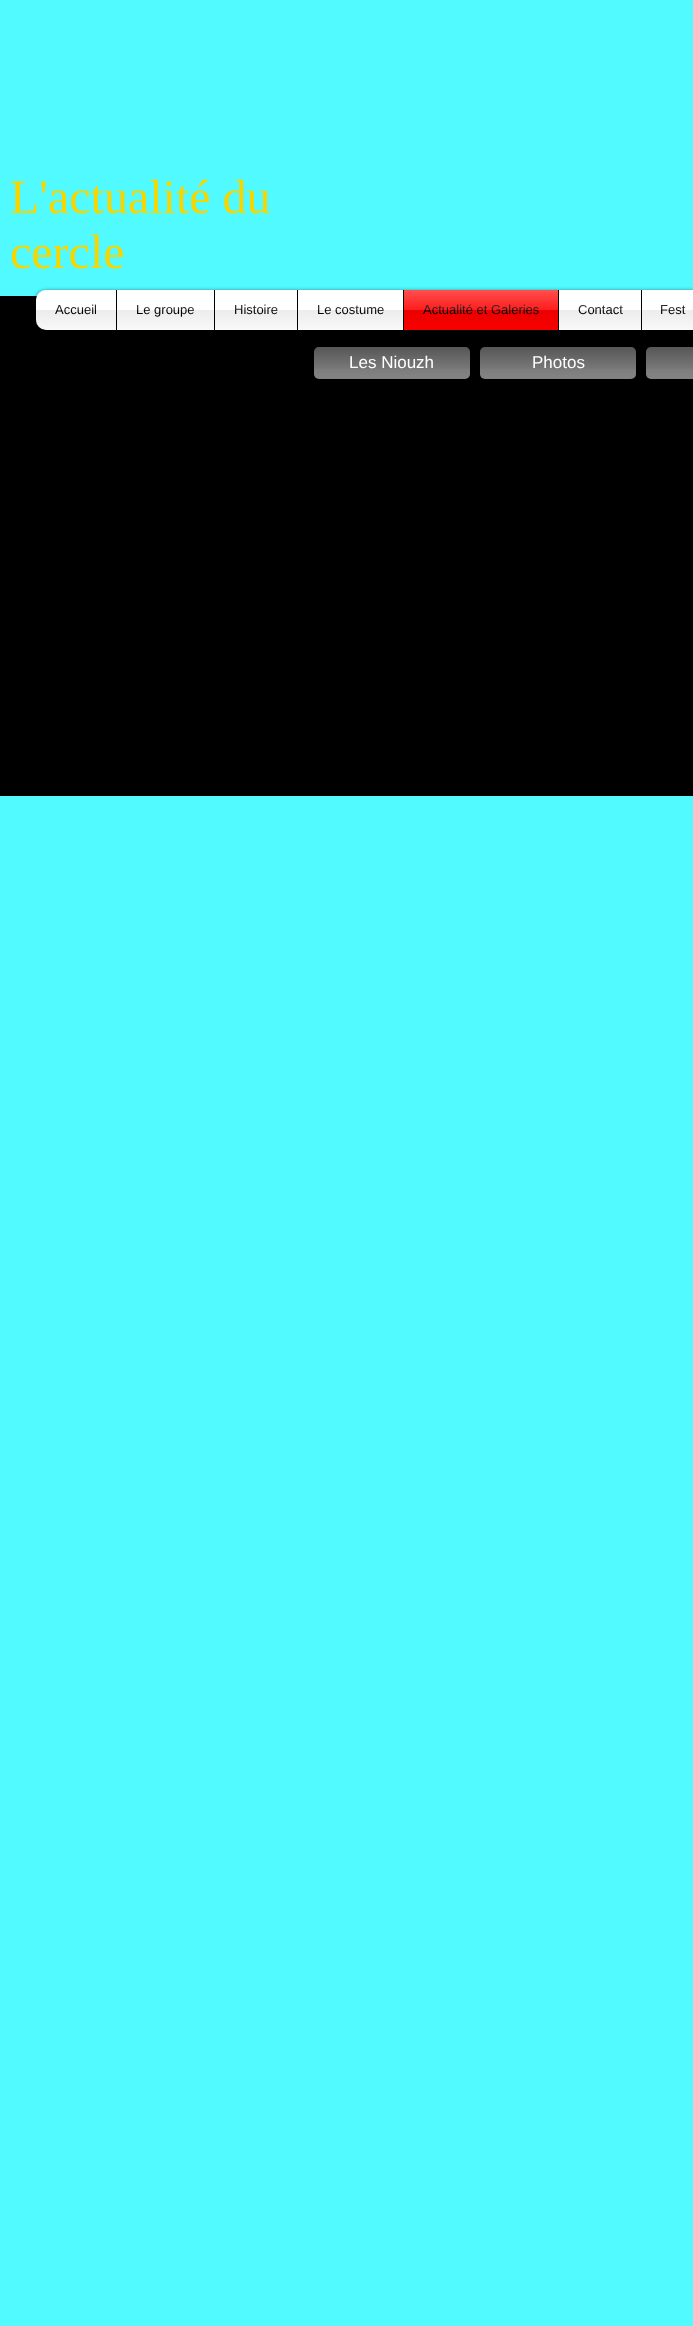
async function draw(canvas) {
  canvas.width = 693;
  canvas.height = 2326;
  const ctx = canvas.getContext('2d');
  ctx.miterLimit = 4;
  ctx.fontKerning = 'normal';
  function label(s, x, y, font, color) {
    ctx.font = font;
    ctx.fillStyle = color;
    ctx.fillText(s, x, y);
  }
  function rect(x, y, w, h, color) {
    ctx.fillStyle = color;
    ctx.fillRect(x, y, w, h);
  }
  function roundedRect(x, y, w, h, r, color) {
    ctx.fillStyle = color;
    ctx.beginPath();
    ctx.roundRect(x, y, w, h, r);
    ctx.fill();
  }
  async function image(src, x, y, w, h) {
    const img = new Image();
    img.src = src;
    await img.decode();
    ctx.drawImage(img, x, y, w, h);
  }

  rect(0, 0, 693, 2326, '#50fafe');
  label('L\'actualité du', 10, 213, '48px Liberation Serif', '#f7d600');
  label('cercle', 10, 268, '48px Liberation Serif', '#f7d600');
  rect(0, 296, 693, 500, '#000');
  ctx.fillStyle = '#00000099';
  ctx.filter = 'blur(2px)';
  ctx.beginPath();
  ctx.roundRect(36, 291, 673, 40, 10);
  ctx.fill();
  ctx.filter = 'none';
  await image('assets/img1.png', 36, 290, 10, 40);
  ctx.fillStyle = '#fff';
  ctx.beginPath();
  ctx.roundRect(36, 290, 80, 40, [10, 0, 0, 10]);
  ctx.fill();
  label('Accueil', 55, 314, '13px Liberation Sans', '#000');
  await image('assets/img2.png', 36, 290, 80, 40);
  rect(117, 290, 97, 40, '#fff');
  rect(116, 290, 1, 6, '#000');
  label('Le groupe', 136, 314, '13px Liberation Sans', '#000');
  await image('assets/img3.png', 117, 305, 97, 25);
  rect(215, 290, 82, 40, '#fff');
  rect(214, 290, 1, 6, '#000');
  label('Histoire', 234, 314, '13px Liberation Sans', '#000');
  await image('assets/img4.png', 215, 304, 82, 26);
  rect(298, 290, 105, 40, '#fff');
  rect(297, 290, 1, 6, '#000');
  label('Le costume', 317, 314, '13px Liberation Sans', '#000');
  await image('assets/img5.png', 298, 305, 105, 25);
  rect(404, 290, 154, 40, '#f00');
  rect(403, 290, 1, 6, '#000');
  label('Actualité et Galeries', 423, 314, '13px Liberation Sans', '#000');
  await image('assets/img6.png', 404, 290, 154, 40);
  rect(559, 290, 82, 40, '#fff');
  rect(558, 290, 1, 6, '#000');
  label('Contact', 578, 314, '13px Liberation Sans', '#000');
  await image('assets/img7.png', 559, 305, 82, 25);
  rect(642, 290, 51, 40, '#fff');
  rect(641, 290, 1, 6, '#000');
  label('Fest', 660, 314, '13px Liberation Sans', '#000');
  await image('assets/img8.png', 642, 305, 51, 25);
  roundedRect(314, 347, 156, 32, 5, '#656565');
  await image('assets/img9.png', 314, 347, 156, 22);
  await image('assets/img10.png', 314, 347, 156, 32);
  label('Les Niouzh', 349, 368, '17px Liberation Sans', '#fff');
  roundedRect(480, 347, 156, 32, 5, '#656565');
  await image('assets/img9.png', 480, 347, 156, 22);
  await image('assets/img11.png', 480, 347, 156, 32);
  label('Photos', 532, 368, '17px Liberation Sans', '#fff');
  roundedRect(646, 347, 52, 32, 5, '#656565');
  await image('assets/img12.png', 646, 347, 47, 22);
  await image('assets/img13.png', 646, 347, 47, 32);
}

draw(document.querySelector('canvas'));
